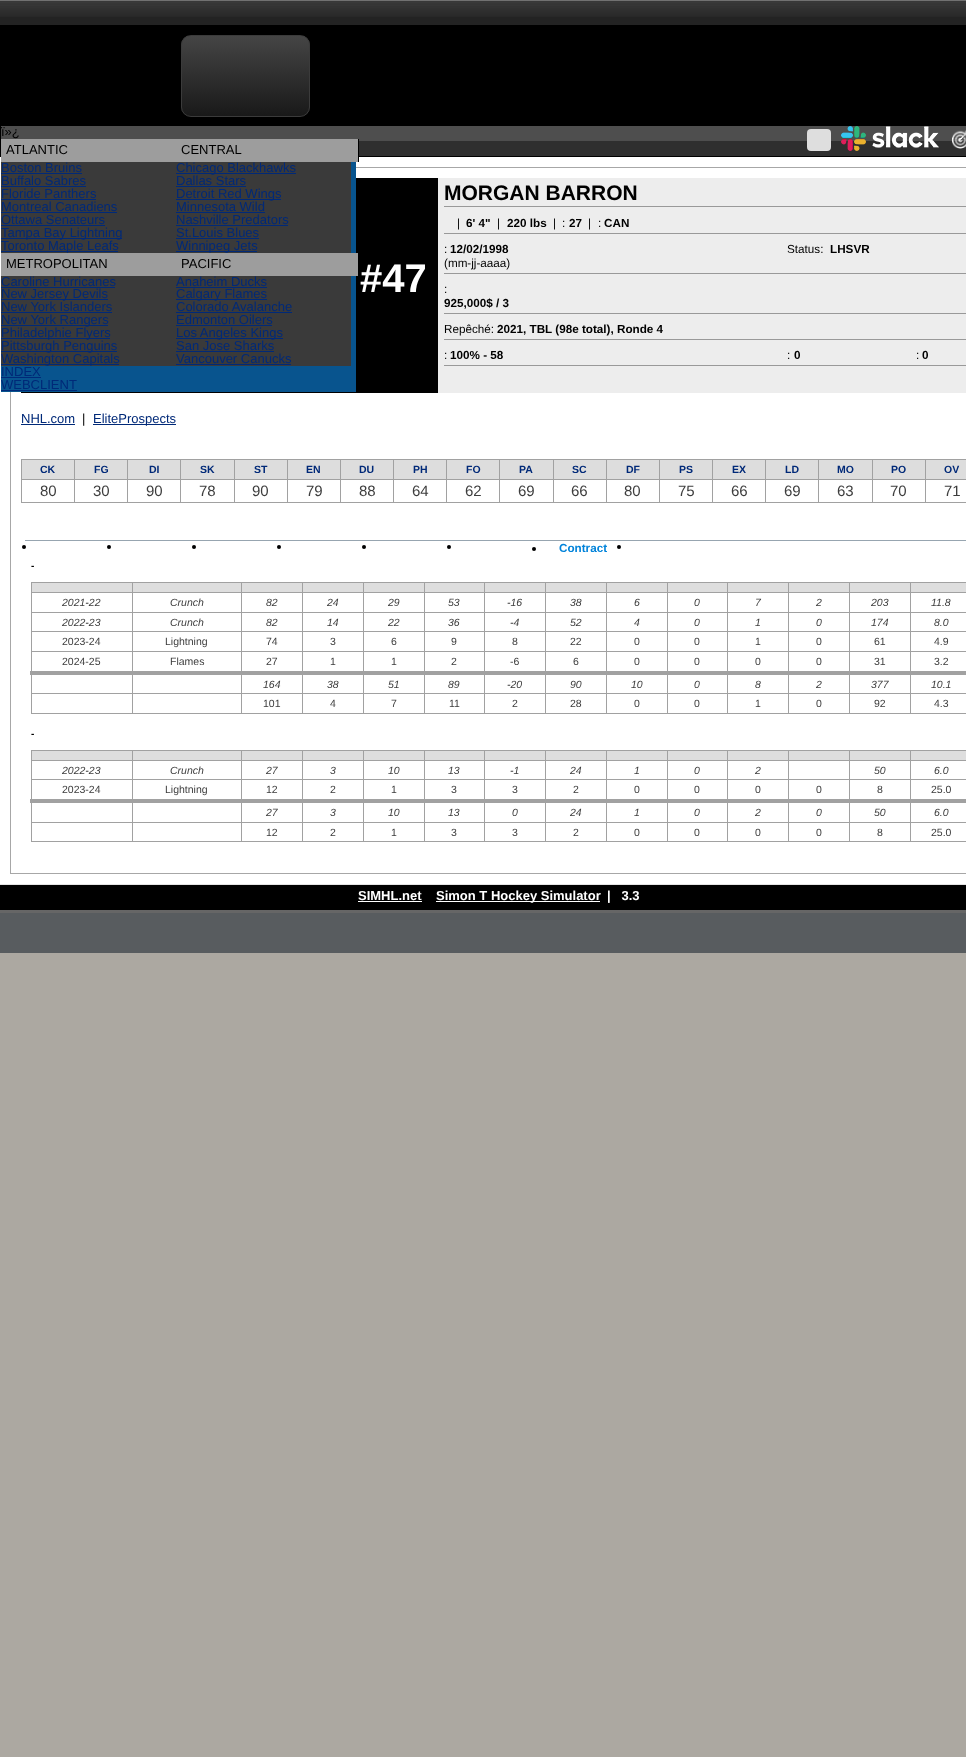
async function draw(canvas) {
  canvas.width = 966;
  canvas.height = 1757;
  const ctx = canvas.getContext('2d');
  ctx.miterLimit = 4;
  ctx.fontKerning = 'normal';
  function label(s, x, y, font, color) {
    ctx.font = font;
    ctx.fillStyle = color;
    ctx.fillText(s, x, y);
  }
  function rect(x, y, w, h, color) {
    ctx.fillStyle = color;
    ctx.fillRect(x, y, w, h);
  }
  function roundedRect(x, y, w, h, r, color) {
    ctx.fillStyle = color;
    ctx.beginPath();
    ctx.roundRect(x, y, w, h, r);
    ctx.fill();
  }
  async function image(src, x, y, w, h) {
    const img = new Image();
    img.src = src;
    await img.decode();
    ctx.drawImage(img, x, y, w, h);
  }
  let gradient;

  rect(0, 0, 966, 1757, '#aca8a1');
  rect(0, 17, 966, 8, '#232323');
  await image('assets/img1.png', 0, 0, 966, 17);
  rect(0, 25, 966, 100, '#000');
  ctx.save();
  ctx.beginPath();
  ctx.roundRect(181, 35, 129, 82, 10);
  ctx.clip();
  gradient = ctx.createLinearGradient(246, 36, 246, 116);
  gradient.addColorStop(0, '#454545');
  gradient.addColorStop(1, '#191919');
  ctx.fillStyle = gradient;
  ctx.fillRect(181, 36, 129, 80);
  ctx.restore();
  ctx.beginPath();
  ctx.roundRect(181.5, 35.5, 128, 81, 9.5);
  ctx.strokeStyle = '#3b3b3b';
  ctx.stroke();
  rect(1, 126, 965, 15, '#4e4e4e');
  rect(359, 141, 607, 15, '#2f2f2f');
  ctx.strokeStyle = '#000';
  ctx.strokeRect(0.5, 125.5, 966, 31);
  label('ï»¿', 1, 136, '13px Liberation Sans', '#000');
  rect(0, 157, 966, 727, '#fff');
  ctx.strokeStyle = '#a7a7a7';
  ctx.strokeRect(10.5, 167.5, 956, 706);
  rect(21, 178, 417, 215, '#000');
  rect(1, 162, 355, 230, '#08548e');
  rect(1, 162, 350, 204, '#3a3a3a');
  rect(1, 139, 357, 23, '#9d9d9d');
  label('ATLANTIC', 6, 154, '13px Liberation Sans', '#000');
  label('Boston Bruins', 1, 172, '13px Liberation Sans', '#002978');
  rect(1, 173, 81, 1, '#002978');
  label('Buffalo Sabres', 1, 185, '13px Liberation Sans', '#002978');
  rect(1, 186, 85, 1, '#002978');
  label('Floride Panthers', 1, 198, '13px Liberation Sans', '#002978');
  rect(1, 199, 95, 1, '#002978');
  label('Montreal Canadiens', 1, 211, '13px Liberation Sans', '#002978');
  rect(1, 212, 116, 1, '#002978');
  label('Ottawa Senateurs', 1, 224, '13px Liberation Sans', '#002978');
  rect(1, 225, 104, 1, '#002978');
  rect(1, 238, 121, 1, '#002978');
  label('Tampa Bay Lightning', 1, 237, '13px Liberation Sans', '#002978');
  rect(1, 251, 117, 1, '#002978');
  label('Toronto Maple Leafs', 1, 250, '13px Liberation Sans', '#002978');
  rect(1, 253, 357, 23, '#9d9d9d');
  label('METROPOLITAN', 6, 268, '13px Liberation Sans', '#000');
  label('Caroline Hurricanes', 1, 286, '13px Liberation Sans', '#002978');
  rect(1, 287, 114, 1, '#002978');
  rect(1, 299, 107, 1, '#002978');
  label('New Jersey Devils', 1, 298, '13px Liberation Sans', '#002978');
  label('New York Islanders', 1, 311, '13px Liberation Sans', '#002978');
  rect(1, 312, 111, 1, '#002978');
  rect(1, 325, 107, 1, '#002978');
  label('New York Rangers', 1, 324, '13px Liberation Sans', '#002978');
  rect(1, 338, 109, 1, '#002978');
  label('Philadelphie Flyers', 1, 337, '13px Liberation Sans', '#002978');
  rect(1, 351, 116, 1, '#002978');
  label('Pittsburgh Penguins', 1, 350, '13px Liberation Sans', '#002978');
  rect(1, 364, 118, 1, '#002978');
  label('Washington Capitals', 1, 363, '13px Liberation Sans', '#002978');
  rect(358, 139, 1, 23, '#000');
  label('CENTRAL', 181, 154, '13px Liberation Sans', '#000');
  rect(176, 173, 120, 1, '#002978');
  label('Chicago Blackhawks', 176, 172, '13px Liberation Sans', '#002978');
  label('Dallas Stars', 176, 185, '13px Liberation Sans', '#002978');
  rect(176, 186, 70, 1, '#002978');
  rect(176, 199, 105, 1, '#002978');
  label('Detroit Red Wings', 176, 198, '13px Liberation Sans', '#002978');
  label('Minnesota Wild', 176, 211, '13px Liberation Sans', '#002978');
  rect(176, 212, 89, 1, '#002978');
  label('Nashville Predators', 176, 224, '13px Liberation Sans', '#002978');
  rect(176, 225, 112, 1, '#002978');
  label('St.Louis Blues', 176, 237, '13px Liberation Sans', '#002978');
  rect(176, 238, 83, 1, '#002978');
  rect(176, 251, 81, 1, '#002978');
  label('Winnipeg Jets', 176, 250, '13px Liberation Sans', '#002978');
  label('PACIFIC', 181, 268, '13px Liberation Sans', '#000');
  label('Anaheim Ducks', 176, 286, '13px Liberation Sans', '#002978');
  rect(176, 287, 91, 1, '#002978');
  rect(176, 299, 91, 1, '#002978');
  label('Calgary Flames', 176, 298, '13px Liberation Sans', '#002978');
  label('Colorado Avalanche', 176, 311, '13px Liberation Sans', '#002978');
  rect(176, 312, 116, 1, '#002978');
  label('Edmonton Oilers', 176, 324, '13px Liberation Sans', '#002978');
  rect(176, 325, 96, 1, '#002978');
  rect(176, 338, 107, 1, '#002978');
  label('Los Angeles Kings', 176, 337, '13px Liberation Sans', '#002978');
  label('San Jose Sharks', 176, 350, '13px Liberation Sans', '#002978');
  rect(176, 351, 98, 1, '#002978');
  label('Vancouver Canucks', 176, 363, '13px Liberation Sans', '#002978');
  rect(176, 364, 115, 1, '#002978');
  label('INDEX', 1, 376, '13px Liberation Sans', '#002978');
  rect(1, 377, 40, 1, '#002978');
  label('WEBCLIENT', 1, 389, '13px Liberation Sans', '#002978');
  rect(1, 390, 76, 1, '#002978');
  roundedRect(807, 129, 24, 22, 4, '#dedede');
  await image('assets/img2.png', 841, 126, 98, 25);
  await image('assets/img3.png', 951, 130, 15, 19);
  label('#47', 360, 292, 'bold 40px Liberation Sans', '#fff');
  rect(438, 178, 528, 215, '#ededed');
  label('MORGAN BARRON', 444, 200, 'bold 21px Liberation Sans', '#000');
  rect(444, 206, 522, 1, '#999');
  rect(444, 233, 522, 1, '#999');
  label('|', 457, 227, '11.7px Liberation Sans', '#000');
  label('6\' 4"', 466, 227, 'bold 11.7px Liberation Sans', '#000');
  label('|', 497, 227, '11.7px Liberation Sans', '#000');
  label('220 lbs', 507, 227, 'bold 11.7px Liberation Sans', '#000');
  label('|', 553, 227, '11.7px Liberation Sans', '#000');
  label(':', 562, 227, '11.7px Liberation Sans', '#000');
  label('27', 569, 227, 'bold 11.7px Liberation Sans', '#000');
  label('|', 588, 227, '11.7px Liberation Sans', '#000');
  label(':', 598, 227, '11.7px Liberation Sans', '#000');
  label('CAN', 604, 227, 'bold 11.7px Liberation Sans', '#000');
  label(':', 444, 253, '11.7px Liberation Sans', '#000');
  label('12/02/1998', 450, 253, 'bold 11.7px Liberation Sans', '#000');
  label('(mm-jj-aaaa)', 444, 267, '11.7px Liberation Sans', '#000');
  rect(444, 273, 522, 1, '#999');
  label('Status:', 787, 253, '11.7px Liberation Sans', '#000');
  label('LHSVR', 830, 253, 'bold 11.7px Liberation Sans', '#000');
  rect(444, 313, 522, 1, '#999');
  label(':', 444, 293, '11.7px Liberation Sans', '#000');
  label('925,000$ / 3', 444, 307, 'bold 11.7px Liberation Sans', '#000');
  rect(444, 339, 522, 1, '#999');
  label('Repêché:', 444, 333, '11.7px Liberation Sans', '#000');
  label('2021, TBL (98e total), Ronde 4', 497, 333, 'bold 11.7px Liberation Sans', '#000');
  label(':', 444, 359, '11.7px Liberation Sans', '#000');
  label('100% - 58', 450, 359, 'bold 11.7px Liberation Sans', '#000');
  label(':', 787, 359, '11.7px Liberation Sans', '#000');
  label('0', 794, 359, 'bold 11.7px Liberation Sans', '#000');
  rect(444, 365, 522, 1, '#999');
  label(':', 916, 359, '11.7px Liberation Sans', '#000');
  label('0', 922, 359, 'bold 11.7px Liberation Sans', '#000');
  label('NHL.com', 21, 423, '13px Liberation Sans', '#002978');
  rect(21, 424, 54, 1, '#002978');
  label('|', 82, 423, '13px Liberation Sans', '#000');
  rect(93, 424, 83, 1, '#002978');
  label('EliteProspects', 93, 423, '13px Liberation Sans', '#002978');
  rect(22, 460, 52, 19, '#ddd');
  rect(925, 459, 41, 1, '#a1a1a1');
  rect(925, 479, 41, 1, '#a1a1a1');
  rect(925, 502, 41, 1, '#a1a1a1');
  rect(925, 479, 1, 24, '#a1a1a1');
  rect(872, 479, 54, 1, '#a1a1a1');
  rect(925, 459, 1, 21, '#a1a1a1');
  rect(872, 459, 54, 1, '#a1a1a1');
  rect(872, 502, 54, 1, '#a1a1a1');
  rect(872, 479, 1, 24, '#a1a1a1');
  rect(818, 479, 55, 1, '#a1a1a1');
  rect(872, 459, 1, 21, '#a1a1a1');
  rect(818, 459, 55, 1, '#a1a1a1');
  rect(818, 502, 55, 1, '#a1a1a1');
  rect(818, 479, 1, 24, '#a1a1a1');
  rect(765, 479, 54, 1, '#a1a1a1');
  rect(818, 459, 1, 21, '#a1a1a1');
  rect(765, 459, 54, 1, '#a1a1a1');
  rect(765, 502, 54, 1, '#a1a1a1');
  rect(765, 479, 1, 24, '#a1a1a1');
  rect(712, 479, 54, 1, '#a1a1a1');
  rect(765, 459, 1, 21, '#a1a1a1');
  rect(712, 459, 54, 1, '#a1a1a1');
  rect(712, 502, 54, 1, '#a1a1a1');
  rect(712, 479, 1, 24, '#a1a1a1');
  rect(659, 479, 54, 1, '#a1a1a1');
  rect(712, 459, 1, 21, '#a1a1a1');
  rect(659, 459, 54, 1, '#a1a1a1');
  rect(659, 502, 54, 1, '#a1a1a1');
  rect(659, 479, 1, 24, '#a1a1a1');
  rect(606, 479, 54, 1, '#a1a1a1');
  rect(659, 459, 1, 21, '#a1a1a1');
  rect(606, 459, 54, 1, '#a1a1a1');
  rect(606, 502, 54, 1, '#a1a1a1');
  rect(606, 479, 1, 24, '#a1a1a1');
  rect(553, 479, 54, 1, '#a1a1a1');
  rect(606, 459, 1, 21, '#a1a1a1');
  rect(553, 459, 54, 1, '#a1a1a1');
  rect(553, 502, 54, 1, '#a1a1a1');
  rect(553, 479, 1, 24, '#a1a1a1');
  rect(499, 479, 55, 1, '#a1a1a1');
  rect(553, 459, 1, 21, '#a1a1a1');
  rect(499, 459, 55, 1, '#a1a1a1');
  rect(499, 502, 55, 1, '#a1a1a1');
  rect(499, 479, 1, 24, '#a1a1a1');
  rect(446, 479, 54, 1, '#a1a1a1');
  rect(499, 459, 1, 21, '#a1a1a1');
  rect(446, 459, 54, 1, '#a1a1a1');
  rect(446, 502, 54, 1, '#a1a1a1');
  rect(446, 479, 1, 24, '#a1a1a1');
  rect(393, 479, 54, 1, '#a1a1a1');
  rect(446, 459, 1, 21, '#a1a1a1');
  rect(393, 459, 54, 1, '#a1a1a1');
  rect(393, 502, 54, 1, '#a1a1a1');
  rect(393, 479, 1, 24, '#a1a1a1');
  rect(340, 479, 54, 1, '#a1a1a1');
  rect(393, 459, 1, 21, '#a1a1a1');
  rect(340, 459, 54, 1, '#a1a1a1');
  rect(340, 502, 54, 1, '#a1a1a1');
  rect(340, 479, 1, 24, '#a1a1a1');
  rect(287, 479, 54, 1, '#a1a1a1');
  rect(340, 459, 1, 21, '#a1a1a1');
  rect(287, 459, 54, 1, '#a1a1a1');
  rect(287, 502, 54, 1, '#a1a1a1');
  rect(287, 479, 1, 24, '#a1a1a1');
  rect(234, 479, 54, 1, '#a1a1a1');
  rect(287, 459, 1, 21, '#a1a1a1');
  rect(234, 459, 54, 1, '#a1a1a1');
  rect(234, 502, 54, 1, '#a1a1a1');
  rect(234, 479, 1, 24, '#a1a1a1');
  rect(180, 479, 55, 1, '#a1a1a1');
  rect(234, 459, 1, 21, '#a1a1a1');
  rect(180, 459, 55, 1, '#a1a1a1');
  rect(180, 502, 55, 1, '#a1a1a1');
  rect(180, 479, 1, 24, '#a1a1a1');
  rect(127, 479, 54, 1, '#a1a1a1');
  rect(180, 459, 1, 21, '#a1a1a1');
  rect(127, 459, 54, 1, '#a1a1a1');
  rect(127, 502, 54, 1, '#a1a1a1');
  rect(127, 479, 1, 24, '#a1a1a1');
  rect(74, 479, 54, 1, '#a1a1a1');
  rect(127, 459, 1, 21, '#a1a1a1');
  rect(74, 459, 54, 1, '#a1a1a1');
  rect(74, 502, 54, 1, '#a1a1a1');
  rect(74, 479, 1, 24, '#a1a1a1');
  rect(21, 479, 54, 1, '#a1a1a1');
  rect(74, 459, 1, 21, '#a1a1a1');
  rect(21, 459, 54, 1, '#a1a1a1');
  rect(21, 502, 54, 1, '#a1a1a1');
  rect(21, 479, 1, 24, '#a1a1a1');
  rect(21, 459, 1, 21, '#a1a1a1');
  label('CK', 40, 473, 'bold 10.5px Liberation Sans', '#002978');
  rect(75, 460, 52, 19, '#ddd');
  label('FG', 94, 473, 'bold 10.5px Liberation Sans', '#002978');
  rect(128, 460, 52, 19, '#ddd');
  label('DI', 149, 473, 'bold 10.5px Liberation Sans', '#002978');
  rect(181, 460, 53, 19, '#ddd');
  label('SK', 200, 473, 'bold 10.5px Liberation Sans', '#002978');
  rect(235, 460, 52, 19, '#ddd');
  label('ST', 254, 473, 'bold 10.5px Liberation Sans', '#002978');
  rect(288, 460, 52, 19, '#ddd');
  label('EN', 306, 473, 'bold 10.5px Liberation Sans', '#002978');
  rect(341, 460, 52, 19, '#ddd');
  label('DU', 359, 473, 'bold 10.5px Liberation Sans', '#002978');
  rect(394, 460, 52, 19, '#ddd');
  label('PH', 413, 473, 'bold 10.5px Liberation Sans', '#002978');
  rect(447, 460, 52, 19, '#ddd');
  label('FO', 466, 473, 'bold 10.5px Liberation Sans', '#002978');
  rect(500, 460, 53, 19, '#ddd');
  label('PA', 519, 473, 'bold 10.5px Liberation Sans', '#002978');
  rect(554, 460, 52, 19, '#ddd');
  label('SC', 572, 473, 'bold 10.5px Liberation Sans', '#002978');
  rect(607, 460, 52, 19, '#ddd');
  label('DF', 626, 473, 'bold 10.5px Liberation Sans', '#002978');
  rect(660, 460, 52, 19, '#ddd');
  label('PS', 679, 473, 'bold 10.5px Liberation Sans', '#002978');
  rect(713, 460, 52, 19, '#ddd');
  label('EX', 732, 473, 'bold 10.5px Liberation Sans', '#002978');
  rect(766, 460, 52, 19, '#ddd');
  label('LD', 785, 473, 'bold 10.5px Liberation Sans', '#002978');
  rect(819, 460, 53, 19, '#ddd');
  label('MO', 837, 473, 'bold 10.5px Liberation Sans', '#002978');
  rect(873, 460, 52, 19, '#ddd');
  label('PO', 891, 473, 'bold 10.5px Liberation Sans', '#002978');
  rect(926, 460, 40, 19, '#ddd');
  label('OV', 944, 473, 'bold 10.5px Liberation Sans', '#002978');
  label('80', 40, 496, '15px Liberation Sans', '#3d3d3d');
  label('30', 93, 496, '15px Liberation Sans', '#3d3d3d');
  label('90', 146, 496, '15px Liberation Sans', '#3d3d3d');
  label('78', 199, 496, '15px Liberation Sans', '#3d3d3d');
  label('90', 252, 496, '15px Liberation Sans', '#3d3d3d');
  label('79', 306, 496, '15px Liberation Sans', '#3d3d3d');
  label('88', 359, 496, '15px Liberation Sans', '#3d3d3d');
  label('64', 412, 496, '15px Liberation Sans', '#3d3d3d');
  label('62', 465, 496, '15px Liberation Sans', '#3d3d3d');
  label('69', 518, 496, '15px Liberation Sans', '#3d3d3d');
  label('66', 571, 496, '15px Liberation Sans', '#3d3d3d');
  label('80', 624, 496, '15px Liberation Sans', '#3d3d3d');
  label('75', 678, 496, '15px Liberation Sans', '#3d3d3d');
  label('66', 731, 496, '15px Liberation Sans', '#3d3d3d');
  label('69', 784, 496, '15px Liberation Sans', '#3d3d3d');
  label('63', 837, 496, '15px Liberation Sans', '#3d3d3d');
  label('70', 890, 496, '15px Liberation Sans', '#3d3d3d');
  label('71', 944, 496, '15px Liberation Sans', '#3d3d3d');
  ctx.fillStyle = '#000';
  ctx.beginPath();
  ctx.arc(24, 547, 2, 0, 2 * Math.PI);
  ctx.fill();
  ctx.beginPath();
  ctx.arc(109, 547, 2, 0, 2 * Math.PI);
  ctx.fill();
  ctx.beginPath();
  ctx.arc(194, 547, 2, 0, 2 * Math.PI);
  ctx.fill();
  ctx.beginPath();
  ctx.arc(279, 547, 2, 0, 2 * Math.PI);
  ctx.fill();
  ctx.beginPath();
  ctx.arc(364, 547, 2, 0, 2 * Math.PI);
  ctx.fill();
  ctx.beginPath();
  ctx.arc(449, 547, 2, 0, 2 * Math.PI);
  ctx.fill();
  ctx.beginPath();
  ctx.arc(534, 549, 2, 0, 2 * Math.PI);
  ctx.fill();
  label('Contract', 559, 552, 'bold 11.7px Liberation Sans', '#0183da');
  ctx.fillStyle = '#000';
  ctx.beginPath();
  ctx.arc(619, 547, 2, 0, 2 * Math.PI);
  ctx.fill();
  rect(25, 540, 941, 1, '#97a5b0');
  label('-', 31, 569, 'bold 10px Liberation Sans', '#000');
  rect(32, 583, 934, 9, '#dedede');
  rect(910, 582, 56, 1, '#a1a1a1');
  rect(910, 592, 56, 1, '#a1a1a1');
  rect(910, 612, 56, 1, '#a1a1a1');
  rect(910, 631, 56, 1, '#a1a1a1');
  rect(910, 651, 56, 1, '#a1a1a1');
  rect(910, 693, 56, 1, '#a1a1a1');
  rect(31, 713, 935, 1, '#a1a1a1');
  rect(910, 693, 1, 21, '#a1a1a1');
  rect(849, 693, 62, 1, '#a1a1a1');
  rect(910, 672, 1, 22, '#a1a1a1');
  rect(910, 651, 1, 22, '#a1a1a1');
  rect(849, 651, 62, 1, '#a1a1a1');
  rect(910, 631, 1, 21, '#a1a1a1');
  rect(849, 631, 62, 1, '#a1a1a1');
  rect(910, 612, 1, 20, '#a1a1a1');
  rect(849, 612, 62, 1, '#a1a1a1');
  rect(910, 592, 1, 21, '#a1a1a1');
  rect(849, 592, 62, 1, '#a1a1a1');
  rect(910, 582, 1, 11, '#a1a1a1');
  rect(849, 582, 62, 1, '#a1a1a1');
  rect(849, 693, 1, 21, '#a1a1a1');
  rect(788, 693, 62, 1, '#a1a1a1');
  rect(849, 672, 1, 22, '#a1a1a1');
  rect(849, 651, 1, 22, '#a1a1a1');
  rect(788, 651, 62, 1, '#a1a1a1');
  rect(849, 631, 1, 21, '#a1a1a1');
  rect(788, 631, 62, 1, '#a1a1a1');
  rect(849, 612, 1, 20, '#a1a1a1');
  rect(788, 612, 62, 1, '#a1a1a1');
  rect(849, 592, 1, 21, '#a1a1a1');
  rect(788, 592, 62, 1, '#a1a1a1');
  rect(849, 582, 1, 11, '#a1a1a1');
  rect(788, 582, 62, 1, '#a1a1a1');
  rect(788, 693, 1, 21, '#a1a1a1');
  rect(727, 693, 62, 1, '#a1a1a1');
  rect(788, 672, 1, 22, '#a1a1a1');
  rect(788, 651, 1, 22, '#a1a1a1');
  rect(727, 651, 62, 1, '#a1a1a1');
  rect(788, 631, 1, 21, '#a1a1a1');
  rect(727, 631, 62, 1, '#a1a1a1');
  rect(788, 612, 1, 20, '#a1a1a1');
  rect(727, 612, 62, 1, '#a1a1a1');
  rect(788, 592, 1, 21, '#a1a1a1');
  rect(727, 592, 62, 1, '#a1a1a1');
  rect(788, 582, 1, 11, '#a1a1a1');
  rect(727, 582, 62, 1, '#a1a1a1');
  rect(727, 693, 1, 21, '#a1a1a1');
  rect(667, 693, 61, 1, '#a1a1a1');
  rect(727, 672, 1, 22, '#a1a1a1');
  rect(727, 651, 1, 22, '#a1a1a1');
  rect(667, 651, 61, 1, '#a1a1a1');
  rect(727, 631, 1, 21, '#a1a1a1');
  rect(667, 631, 61, 1, '#a1a1a1');
  rect(727, 612, 1, 20, '#a1a1a1');
  rect(667, 612, 61, 1, '#a1a1a1');
  rect(727, 592, 1, 21, '#a1a1a1');
  rect(667, 592, 61, 1, '#a1a1a1');
  rect(727, 582, 1, 11, '#a1a1a1');
  rect(667, 582, 61, 1, '#a1a1a1');
  rect(667, 693, 1, 21, '#a1a1a1');
  rect(606, 693, 62, 1, '#a1a1a1');
  rect(667, 672, 1, 22, '#a1a1a1');
  rect(667, 651, 1, 22, '#a1a1a1');
  rect(606, 651, 62, 1, '#a1a1a1');
  rect(667, 631, 1, 21, '#a1a1a1');
  rect(606, 631, 62, 1, '#a1a1a1');
  rect(667, 612, 1, 20, '#a1a1a1');
  rect(606, 612, 62, 1, '#a1a1a1');
  rect(667, 592, 1, 21, '#a1a1a1');
  rect(606, 592, 62, 1, '#a1a1a1');
  rect(667, 582, 1, 11, '#a1a1a1');
  rect(606, 582, 62, 1, '#a1a1a1');
  rect(606, 693, 1, 21, '#a1a1a1');
  rect(545, 693, 62, 1, '#a1a1a1');
  rect(606, 672, 1, 22, '#a1a1a1');
  rect(606, 651, 1, 22, '#a1a1a1');
  rect(545, 651, 62, 1, '#a1a1a1');
  rect(606, 631, 1, 21, '#a1a1a1');
  rect(545, 631, 62, 1, '#a1a1a1');
  rect(606, 612, 1, 20, '#a1a1a1');
  rect(545, 612, 62, 1, '#a1a1a1');
  rect(606, 592, 1, 21, '#a1a1a1');
  rect(545, 592, 62, 1, '#a1a1a1');
  rect(606, 582, 1, 11, '#a1a1a1');
  rect(545, 582, 62, 1, '#a1a1a1');
  rect(545, 693, 1, 21, '#a1a1a1');
  rect(484, 693, 62, 1, '#a1a1a1');
  rect(545, 672, 1, 22, '#a1a1a1');
  rect(545, 651, 1, 22, '#a1a1a1');
  rect(484, 651, 62, 1, '#a1a1a1');
  rect(545, 631, 1, 21, '#a1a1a1');
  rect(484, 631, 62, 1, '#a1a1a1');
  rect(545, 612, 1, 20, '#a1a1a1');
  rect(484, 612, 62, 1, '#a1a1a1');
  rect(545, 592, 1, 21, '#a1a1a1');
  rect(484, 592, 62, 1, '#a1a1a1');
  rect(545, 582, 1, 11, '#a1a1a1');
  rect(484, 582, 62, 1, '#a1a1a1');
  rect(484, 693, 1, 21, '#a1a1a1');
  rect(424, 693, 61, 1, '#a1a1a1');
  rect(484, 672, 1, 22, '#a1a1a1');
  rect(484, 651, 1, 22, '#a1a1a1');
  rect(424, 651, 61, 1, '#a1a1a1');
  rect(484, 631, 1, 21, '#a1a1a1');
  rect(424, 631, 61, 1, '#a1a1a1');
  rect(484, 612, 1, 20, '#a1a1a1');
  rect(424, 612, 61, 1, '#a1a1a1');
  rect(484, 592, 1, 21, '#a1a1a1');
  rect(424, 592, 61, 1, '#a1a1a1');
  rect(484, 582, 1, 11, '#a1a1a1');
  rect(424, 582, 61, 1, '#a1a1a1');
  rect(424, 693, 1, 21, '#a1a1a1');
  rect(363, 693, 62, 1, '#a1a1a1');
  rect(424, 672, 1, 22, '#a1a1a1');
  rect(424, 651, 1, 22, '#a1a1a1');
  rect(363, 651, 62, 1, '#a1a1a1');
  rect(424, 631, 1, 21, '#a1a1a1');
  rect(363, 631, 62, 1, '#a1a1a1');
  rect(424, 612, 1, 20, '#a1a1a1');
  rect(363, 612, 62, 1, '#a1a1a1');
  rect(424, 592, 1, 21, '#a1a1a1');
  rect(363, 592, 62, 1, '#a1a1a1');
  rect(424, 582, 1, 11, '#a1a1a1');
  rect(363, 582, 62, 1, '#a1a1a1');
  rect(363, 693, 1, 21, '#a1a1a1');
  rect(302, 693, 62, 1, '#a1a1a1');
  rect(363, 672, 1, 22, '#a1a1a1');
  rect(363, 651, 1, 22, '#a1a1a1');
  rect(302, 651, 62, 1, '#a1a1a1');
  rect(363, 631, 1, 21, '#a1a1a1');
  rect(302, 631, 62, 1, '#a1a1a1');
  rect(363, 612, 1, 20, '#a1a1a1');
  rect(302, 612, 62, 1, '#a1a1a1');
  rect(363, 592, 1, 21, '#a1a1a1');
  rect(302, 592, 62, 1, '#a1a1a1');
  rect(363, 582, 1, 11, '#a1a1a1');
  rect(302, 582, 62, 1, '#a1a1a1');
  rect(302, 693, 1, 21, '#a1a1a1');
  rect(241, 693, 62, 1, '#a1a1a1');
  rect(302, 672, 1, 22, '#a1a1a1');
  rect(302, 651, 1, 22, '#a1a1a1');
  rect(241, 651, 62, 1, '#a1a1a1');
  rect(302, 631, 1, 21, '#a1a1a1');
  rect(241, 631, 62, 1, '#a1a1a1');
  rect(302, 612, 1, 20, '#a1a1a1');
  rect(241, 612, 62, 1, '#a1a1a1');
  rect(302, 592, 1, 21, '#a1a1a1');
  rect(241, 592, 62, 1, '#a1a1a1');
  rect(302, 582, 1, 11, '#a1a1a1');
  rect(241, 582, 62, 1, '#a1a1a1');
  rect(241, 693, 1, 21, '#a1a1a1');
  rect(132, 693, 110, 1, '#a1a1a1');
  rect(241, 672, 1, 22, '#a1a1a1');
  rect(241, 651, 1, 22, '#a1a1a1');
  rect(132, 651, 110, 1, '#a1a1a1');
  rect(241, 631, 1, 21, '#a1a1a1');
  rect(132, 631, 110, 1, '#a1a1a1');
  rect(241, 612, 1, 20, '#a1a1a1');
  rect(132, 612, 110, 1, '#a1a1a1');
  rect(241, 592, 1, 21, '#a1a1a1');
  rect(132, 592, 110, 1, '#a1a1a1');
  rect(241, 582, 1, 11, '#a1a1a1');
  rect(132, 582, 110, 1, '#a1a1a1');
  rect(31, 672, 1, 42, '#a1a1a1');
  rect(132, 693, 1, 21, '#a1a1a1');
  rect(31, 693, 102, 1, '#a1a1a1');
  rect(132, 672, 1, 22, '#a1a1a1');
  rect(132, 651, 1, 22, '#a1a1a1');
  rect(31, 651, 102, 1, '#a1a1a1');
  rect(132, 631, 1, 21, '#a1a1a1');
  rect(31, 631, 102, 1, '#a1a1a1');
  rect(132, 612, 1, 20, '#a1a1a1');
  rect(31, 612, 102, 1, '#a1a1a1');
  rect(132, 592, 1, 21, '#a1a1a1');
  rect(31, 592, 102, 1, '#a1a1a1');
  rect(132, 582, 1, 11, '#a1a1a1');
  rect(31, 582, 102, 1, '#a1a1a1');
  rect(31, 651, 1, 22, '#a1a1a1');
  rect(31, 631, 1, 21, '#a1a1a1');
  rect(31, 612, 1, 20, '#a1a1a1');
  rect(31, 592, 1, 21, '#a1a1a1');
  rect(31, 582, 1, 11, '#a1a1a1');
  label('2021-22', 62, 606, 'italic 10.5px Liberation Sans', '#3d3d3d');
  label('Crunch', 170, 606, 'italic 10.5px Liberation Sans', '#3d3d3d');
  label('82', 266, 606, 'italic 10.5px Liberation Sans', '#3d3d3d');
  label('24', 327, 606, 'italic 10.5px Liberation Sans', '#3d3d3d');
  label('29', 388, 606, 'italic 10.5px Liberation Sans', '#3d3d3d');
  label('53', 448, 606, 'italic 10.5px Liberation Sans', '#3d3d3d');
  label('-16', 507, 606, 'italic 10.5px Liberation Sans', '#3d3d3d');
  label('38', 570, 606, 'italic 10.5px Liberation Sans', '#3d3d3d');
  label('6', 634, 606, 'italic 10.5px Liberation Sans', '#3d3d3d');
  label('0', 694, 606, 'italic 10.5px Liberation Sans', '#3d3d3d');
  label('7', 755, 606, 'italic 10.5px Liberation Sans', '#3d3d3d');
  label('2', 816, 606, 'italic 10.5px Liberation Sans', '#3d3d3d');
  label('203', 871, 606, 'italic 10.5px Liberation Sans', '#3d3d3d');
  label('11.8', 931, 606, 'italic 10.5px Liberation Sans', '#3d3d3d');
  label('2022-23', 62, 626, 'italic 10.5px Liberation Sans', '#3d3d3d');
  label('Crunch', 170, 626, 'italic 10.5px Liberation Sans', '#3d3d3d');
  label('82', 266, 626, 'italic 10.5px Liberation Sans', '#3d3d3d');
  label('14', 327, 626, 'italic 10.5px Liberation Sans', '#3d3d3d');
  label('22', 388, 626, 'italic 10.5px Liberation Sans', '#3d3d3d');
  label('36', 448, 626, 'italic 10.5px Liberation Sans', '#3d3d3d');
  label('-4', 510, 626, 'italic 10.5px Liberation Sans', '#3d3d3d');
  label('52', 570, 626, 'italic 10.5px Liberation Sans', '#3d3d3d');
  label('4', 634, 626, 'italic 10.5px Liberation Sans', '#3d3d3d');
  label('0', 694, 626, 'italic 10.5px Liberation Sans', '#3d3d3d');
  label('1', 755, 626, 'italic 10.5px Liberation Sans', '#3d3d3d');
  label('0', 816, 626, 'italic 10.5px Liberation Sans', '#3d3d3d');
  label('174', 871, 626, 'italic 10.5px Liberation Sans', '#3d3d3d');
  label('8.0', 934, 626, 'italic 10.5px Liberation Sans', '#3d3d3d');
  label('2023-24', 62, 645, '10.5px Liberation Sans', '#3d3d3d');
  label('Lightning', 165, 645, '10.5px Liberation Sans', '#3d3d3d');
  label('74', 266, 645, '10.5px Liberation Sans', '#3d3d3d');
  label('3', 330, 645, '10.5px Liberation Sans', '#3d3d3d');
  label('6', 391, 645, '10.5px Liberation Sans', '#3d3d3d');
  label('9', 451, 645, '10.5px Liberation Sans', '#3d3d3d');
  label('8', 512, 645, '10.5px Liberation Sans', '#3d3d3d');
  label('22', 570, 645, '10.5px Liberation Sans', '#3d3d3d');
  label('0', 634, 645, '10.5px Liberation Sans', '#3d3d3d');
  label('0', 694, 645, '10.5px Liberation Sans', '#3d3d3d');
  label('1', 755, 645, '10.5px Liberation Sans', '#3d3d3d');
  label('0', 816, 645, '10.5px Liberation Sans', '#3d3d3d');
  label('61', 874, 645, '10.5px Liberation Sans', '#3d3d3d');
  label('4.9', 934, 645, '10.5px Liberation Sans', '#3d3d3d');
  label('2024-25', 62, 665, '10.5px Liberation Sans', '#3d3d3d');
  label('Flames', 170, 665, '10.5px Liberation Sans', '#3d3d3d');
  label('27', 266, 665, '10.5px Liberation Sans', '#3d3d3d');
  label('1', 330, 665, '10.5px Liberation Sans', '#3d3d3d');
  label('1', 391, 665, '10.5px Liberation Sans', '#3d3d3d');
  label('2', 451, 665, '10.5px Liberation Sans', '#3d3d3d');
  label('-6', 510, 665, '10.5px Liberation Sans', '#3d3d3d');
  label('6', 573, 665, '10.5px Liberation Sans', '#3d3d3d');
  label('0', 634, 665, '10.5px Liberation Sans', '#3d3d3d');
  label('0', 694, 665, '10.5px Liberation Sans', '#3d3d3d');
  label('0', 755, 665, '10.5px Liberation Sans', '#3d3d3d');
  label('0', 816, 665, '10.5px Liberation Sans', '#3d3d3d');
  label('31', 874, 665, '10.5px Liberation Sans', '#3d3d3d');
  label('3.2', 934, 665, '10.5px Liberation Sans', '#3d3d3d');
  rect(30, 671, 936, 4, '#a1a1a1');
  label('164', 263, 688, 'italic 10.5px Liberation Sans', '#3d3d3d');
  label('38', 327, 688, 'italic 10.5px Liberation Sans', '#3d3d3d');
  label('51', 388, 688, 'italic 10.5px Liberation Sans', '#3d3d3d');
  label('89', 448, 688, 'italic 10.5px Liberation Sans', '#3d3d3d');
  label('-20', 507, 688, 'italic 10.5px Liberation Sans', '#3d3d3d');
  label('90', 570, 688, 'italic 10.5px Liberation Sans', '#3d3d3d');
  label('10', 631, 688, 'italic 10.5px Liberation Sans', '#3d3d3d');
  label('0', 694, 688, 'italic 10.5px Liberation Sans', '#3d3d3d');
  label('8', 755, 688, 'italic 10.5px Liberation Sans', '#3d3d3d');
  label('2', 816, 688, 'italic 10.5px Liberation Sans', '#3d3d3d');
  label('377', 871, 688, 'italic 10.5px Liberation Sans', '#3d3d3d');
  label('10.1', 931, 688, 'italic 10.5px Liberation Sans', '#3d3d3d');
  label('101', 263, 707, '10.5px Liberation Sans', '#3d3d3d');
  label('4', 330, 707, '10.5px Liberation Sans', '#3d3d3d');
  label('7', 391, 707, '10.5px Liberation Sans', '#3d3d3d');
  label('11', 449, 707, '10.5px Liberation Sans', '#3d3d3d');
  label('2', 512, 707, '10.5px Liberation Sans', '#3d3d3d');
  label('28', 570, 707, '10.5px Liberation Sans', '#3d3d3d');
  label('0', 634, 707, '10.5px Liberation Sans', '#3d3d3d');
  label('0', 694, 707, '10.5px Liberation Sans', '#3d3d3d');
  label('1', 755, 707, '10.5px Liberation Sans', '#3d3d3d');
  label('0', 816, 707, '10.5px Liberation Sans', '#3d3d3d');
  label('92', 874, 707, '10.5px Liberation Sans', '#3d3d3d');
  label('4.3', 934, 707, '10.5px Liberation Sans', '#3d3d3d');
  label('-', 31, 737, 'bold 10px Liberation Sans', '#000');
  rect(32, 751, 934, 9, '#dedede');
  rect(910, 750, 56, 1, '#a1a1a1');
  rect(910, 760, 56, 1, '#a1a1a1');
  rect(910, 779, 56, 1, '#a1a1a1');
  rect(910, 822, 56, 1, '#a1a1a1');
  rect(31, 841, 935, 1, '#a1a1a1');
  rect(910, 822, 1, 20, '#a1a1a1');
  rect(849, 822, 62, 1, '#a1a1a1');
  rect(910, 800, 1, 23, '#a1a1a1');
  rect(910, 779, 1, 22, '#a1a1a1');
  rect(849, 779, 62, 1, '#a1a1a1');
  rect(910, 760, 1, 20, '#a1a1a1');
  rect(849, 760, 62, 1, '#a1a1a1');
  rect(910, 750, 1, 11, '#a1a1a1');
  rect(849, 750, 62, 1, '#a1a1a1');
  rect(849, 822, 1, 20, '#a1a1a1');
  rect(788, 822, 62, 1, '#a1a1a1');
  rect(849, 800, 1, 23, '#a1a1a1');
  rect(849, 779, 1, 22, '#a1a1a1');
  rect(788, 779, 62, 1, '#a1a1a1');
  rect(849, 760, 1, 20, '#a1a1a1');
  rect(788, 760, 62, 1, '#a1a1a1');
  rect(849, 750, 1, 11, '#a1a1a1');
  rect(788, 750, 62, 1, '#a1a1a1');
  rect(788, 822, 1, 20, '#a1a1a1');
  rect(727, 822, 62, 1, '#a1a1a1');
  rect(788, 800, 1, 23, '#a1a1a1');
  rect(788, 779, 1, 22, '#a1a1a1');
  rect(727, 779, 62, 1, '#a1a1a1');
  rect(788, 760, 1, 20, '#a1a1a1');
  rect(727, 760, 62, 1, '#a1a1a1');
  rect(788, 750, 1, 11, '#a1a1a1');
  rect(727, 750, 62, 1, '#a1a1a1');
  rect(727, 822, 1, 20, '#a1a1a1');
  rect(667, 822, 61, 1, '#a1a1a1');
  rect(727, 800, 1, 23, '#a1a1a1');
  rect(727, 779, 1, 22, '#a1a1a1');
  rect(667, 779, 61, 1, '#a1a1a1');
  rect(727, 760, 1, 20, '#a1a1a1');
  rect(667, 760, 61, 1, '#a1a1a1');
  rect(727, 750, 1, 11, '#a1a1a1');
  rect(667, 750, 61, 1, '#a1a1a1');
  rect(667, 822, 1, 20, '#a1a1a1');
  rect(606, 822, 62, 1, '#a1a1a1');
  rect(667, 800, 1, 23, '#a1a1a1');
  rect(667, 779, 1, 22, '#a1a1a1');
  rect(606, 779, 62, 1, '#a1a1a1');
  rect(667, 760, 1, 20, '#a1a1a1');
  rect(606, 760, 62, 1, '#a1a1a1');
  rect(667, 750, 1, 11, '#a1a1a1');
  rect(606, 750, 62, 1, '#a1a1a1');
  rect(606, 822, 1, 20, '#a1a1a1');
  rect(545, 822, 62, 1, '#a1a1a1');
  rect(606, 800, 1, 23, '#a1a1a1');
  rect(606, 779, 1, 22, '#a1a1a1');
  rect(545, 779, 62, 1, '#a1a1a1');
  rect(606, 760, 1, 20, '#a1a1a1');
  rect(545, 760, 62, 1, '#a1a1a1');
  rect(606, 750, 1, 11, '#a1a1a1');
  rect(545, 750, 62, 1, '#a1a1a1');
  rect(545, 822, 1, 20, '#a1a1a1');
  rect(484, 822, 62, 1, '#a1a1a1');
  rect(545, 800, 1, 23, '#a1a1a1');
  rect(545, 779, 1, 22, '#a1a1a1');
  rect(484, 779, 62, 1, '#a1a1a1');
  rect(545, 760, 1, 20, '#a1a1a1');
  rect(484, 760, 62, 1, '#a1a1a1');
  rect(545, 750, 1, 11, '#a1a1a1');
  rect(484, 750, 62, 1, '#a1a1a1');
  rect(484, 822, 1, 20, '#a1a1a1');
  rect(424, 822, 61, 1, '#a1a1a1');
  rect(484, 800, 1, 23, '#a1a1a1');
  rect(484, 779, 1, 22, '#a1a1a1');
  rect(424, 779, 61, 1, '#a1a1a1');
  rect(484, 760, 1, 20, '#a1a1a1');
  rect(424, 760, 61, 1, '#a1a1a1');
  rect(484, 750, 1, 11, '#a1a1a1');
  rect(424, 750, 61, 1, '#a1a1a1');
  rect(424, 822, 1, 20, '#a1a1a1');
  rect(363, 822, 62, 1, '#a1a1a1');
  rect(424, 800, 1, 23, '#a1a1a1');
  rect(424, 779, 1, 22, '#a1a1a1');
  rect(363, 779, 62, 1, '#a1a1a1');
  rect(424, 760, 1, 20, '#a1a1a1');
  rect(363, 760, 62, 1, '#a1a1a1');
  rect(424, 750, 1, 11, '#a1a1a1');
  rect(363, 750, 62, 1, '#a1a1a1');
  rect(363, 822, 1, 20, '#a1a1a1');
  rect(302, 822, 62, 1, '#a1a1a1');
  rect(363, 800, 1, 23, '#a1a1a1');
  rect(363, 779, 1, 22, '#a1a1a1');
  rect(302, 779, 62, 1, '#a1a1a1');
  rect(363, 760, 1, 20, '#a1a1a1');
  rect(302, 760, 62, 1, '#a1a1a1');
  rect(363, 750, 1, 11, '#a1a1a1');
  rect(302, 750, 62, 1, '#a1a1a1');
  rect(302, 822, 1, 20, '#a1a1a1');
  rect(241, 822, 62, 1, '#a1a1a1');
  rect(302, 800, 1, 23, '#a1a1a1');
  rect(302, 779, 1, 22, '#a1a1a1');
  rect(241, 779, 62, 1, '#a1a1a1');
  rect(302, 760, 1, 20, '#a1a1a1');
  rect(241, 760, 62, 1, '#a1a1a1');
  rect(302, 750, 1, 11, '#a1a1a1');
  rect(241, 750, 62, 1, '#a1a1a1');
  rect(241, 822, 1, 20, '#a1a1a1');
  rect(132, 822, 110, 1, '#a1a1a1');
  rect(241, 800, 1, 23, '#a1a1a1');
  rect(241, 779, 1, 22, '#a1a1a1');
  rect(132, 779, 110, 1, '#a1a1a1');
  rect(241, 760, 1, 20, '#a1a1a1');
  rect(132, 760, 110, 1, '#a1a1a1');
  rect(241, 750, 1, 11, '#a1a1a1');
  rect(132, 750, 110, 1, '#a1a1a1');
  rect(31, 800, 1, 42, '#a1a1a1');
  rect(132, 822, 1, 20, '#a1a1a1');
  rect(31, 822, 102, 1, '#a1a1a1');
  rect(132, 800, 1, 23, '#a1a1a1');
  rect(132, 779, 1, 22, '#a1a1a1');
  rect(31, 779, 102, 1, '#a1a1a1');
  rect(132, 760, 1, 20, '#a1a1a1');
  rect(31, 760, 102, 1, '#a1a1a1');
  rect(132, 750, 1, 11, '#a1a1a1');
  rect(31, 750, 102, 1, '#a1a1a1');
  rect(31, 779, 1, 22, '#a1a1a1');
  rect(31, 760, 1, 20, '#a1a1a1');
  rect(31, 750, 1, 11, '#a1a1a1');
  label('2022-23', 62, 774, 'italic 10.5px Liberation Sans', '#3d3d3d');
  label('Crunch', 170, 774, 'italic 10.5px Liberation Sans', '#3d3d3d');
  label('27', 266, 774, 'italic 10.5px Liberation Sans', '#3d3d3d');
  label('3', 330, 774, 'italic 10.5px Liberation Sans', '#3d3d3d');
  label('10', 388, 774, 'italic 10.5px Liberation Sans', '#3d3d3d');
  label('13', 448, 774, 'italic 10.5px Liberation Sans', '#3d3d3d');
  label('-1', 510, 774, 'italic 10.5px Liberation Sans', '#3d3d3d');
  label('24', 570, 774, 'italic 10.5px Liberation Sans', '#3d3d3d');
  label('1', 634, 774, 'italic 10.5px Liberation Sans', '#3d3d3d');
  label('0', 694, 774, 'italic 10.5px Liberation Sans', '#3d3d3d');
  label('2', 755, 774, 'italic 10.5px Liberation Sans', '#3d3d3d');
  label('50', 874, 774, 'italic 10.5px Liberation Sans', '#3d3d3d');
  label('6.0', 934, 774, 'italic 10.5px Liberation Sans', '#3d3d3d');
  label('2023-24', 62, 793, '10.5px Liberation Sans', '#3d3d3d');
  label('Lightning', 165, 793, '10.5px Liberation Sans', '#3d3d3d');
  label('12', 266, 793, '10.5px Liberation Sans', '#3d3d3d');
  label('2', 330, 793, '10.5px Liberation Sans', '#3d3d3d');
  label('1', 391, 793, '10.5px Liberation Sans', '#3d3d3d');
  label('3', 451, 793, '10.5px Liberation Sans', '#3d3d3d');
  label('3', 512, 793, '10.5px Liberation Sans', '#3d3d3d');
  label('2', 573, 793, '10.5px Liberation Sans', '#3d3d3d');
  label('0', 634, 793, '10.5px Liberation Sans', '#3d3d3d');
  label('0', 694, 793, '10.5px Liberation Sans', '#3d3d3d');
  label('0', 755, 793, '10.5px Liberation Sans', '#3d3d3d');
  label('0', 816, 793, '10.5px Liberation Sans', '#3d3d3d');
  label('8', 877, 793, '10.5px Liberation Sans', '#3d3d3d');
  label('25.0', 931, 793, '10.5px Liberation Sans', '#3d3d3d');
  rect(30, 799, 936, 4, '#a1a1a1');
  label('27', 266, 816, 'italic 10.5px Liberation Sans', '#3d3d3d');
  label('3', 330, 816, 'italic 10.5px Liberation Sans', '#3d3d3d');
  label('10', 388, 816, 'italic 10.5px Liberation Sans', '#3d3d3d');
  label('13', 448, 816, 'italic 10.5px Liberation Sans', '#3d3d3d');
  label('0', 512, 816, 'italic 10.5px Liberation Sans', '#3d3d3d');
  label('24', 570, 816, 'italic 10.5px Liberation Sans', '#3d3d3d');
  label('1', 634, 816, 'italic 10.5px Liberation Sans', '#3d3d3d');
  label('0', 694, 816, 'italic 10.5px Liberation Sans', '#3d3d3d');
  label('2', 755, 816, 'italic 10.5px Liberation Sans', '#3d3d3d');
  label('0', 816, 816, 'italic 10.5px Liberation Sans', '#3d3d3d');
  label('50', 874, 816, 'italic 10.5px Liberation Sans', '#3d3d3d');
  label('6.0', 934, 816, 'italic 10.5px Liberation Sans', '#3d3d3d');
  label('12', 266, 836, '10.5px Liberation Sans', '#3d3d3d');
  label('2', 330, 836, '10.5px Liberation Sans', '#3d3d3d');
  label('1', 391, 836, '10.5px Liberation Sans', '#3d3d3d');
  label('3', 451, 836, '10.5px Liberation Sans', '#3d3d3d');
  label('3', 512, 836, '10.5px Liberation Sans', '#3d3d3d');
  label('2', 573, 836, '10.5px Liberation Sans', '#3d3d3d');
  label('0', 634, 836, '10.5px Liberation Sans', '#3d3d3d');
  label('0', 694, 836, '10.5px Liberation Sans', '#3d3d3d');
  label('0', 755, 836, '10.5px Liberation Sans', '#3d3d3d');
  label('0', 816, 836, '10.5px Liberation Sans', '#3d3d3d');
  label('8', 877, 836, '10.5px Liberation Sans', '#3d3d3d');
  label('25.0', 931, 836, '10.5px Liberation Sans', '#3d3d3d');
  rect(0, 885, 966, 25, '#000');
  rect(0, 884, 966, 1, '#e4e4e4');
  label('SIMHL.net', 358, 900, 'bold 13px Liberation Sans', '#fff');
  rect(358, 901, 64, 1, '#fff');
  rect(436, 901, 164, 1, '#fff');
  label('Simon T Hockey Simulator', 436, 900, 'bold 13px Liberation Sans', '#fff');
  label('|   3.3', 607, 900, 'bold 13px Liberation Sans', '#fff');
  rect(0, 913, 966, 40, '#585c5f');
  rect(0, 910, 966, 3, '#666');
}

draw(document.querySelector('canvas'));
